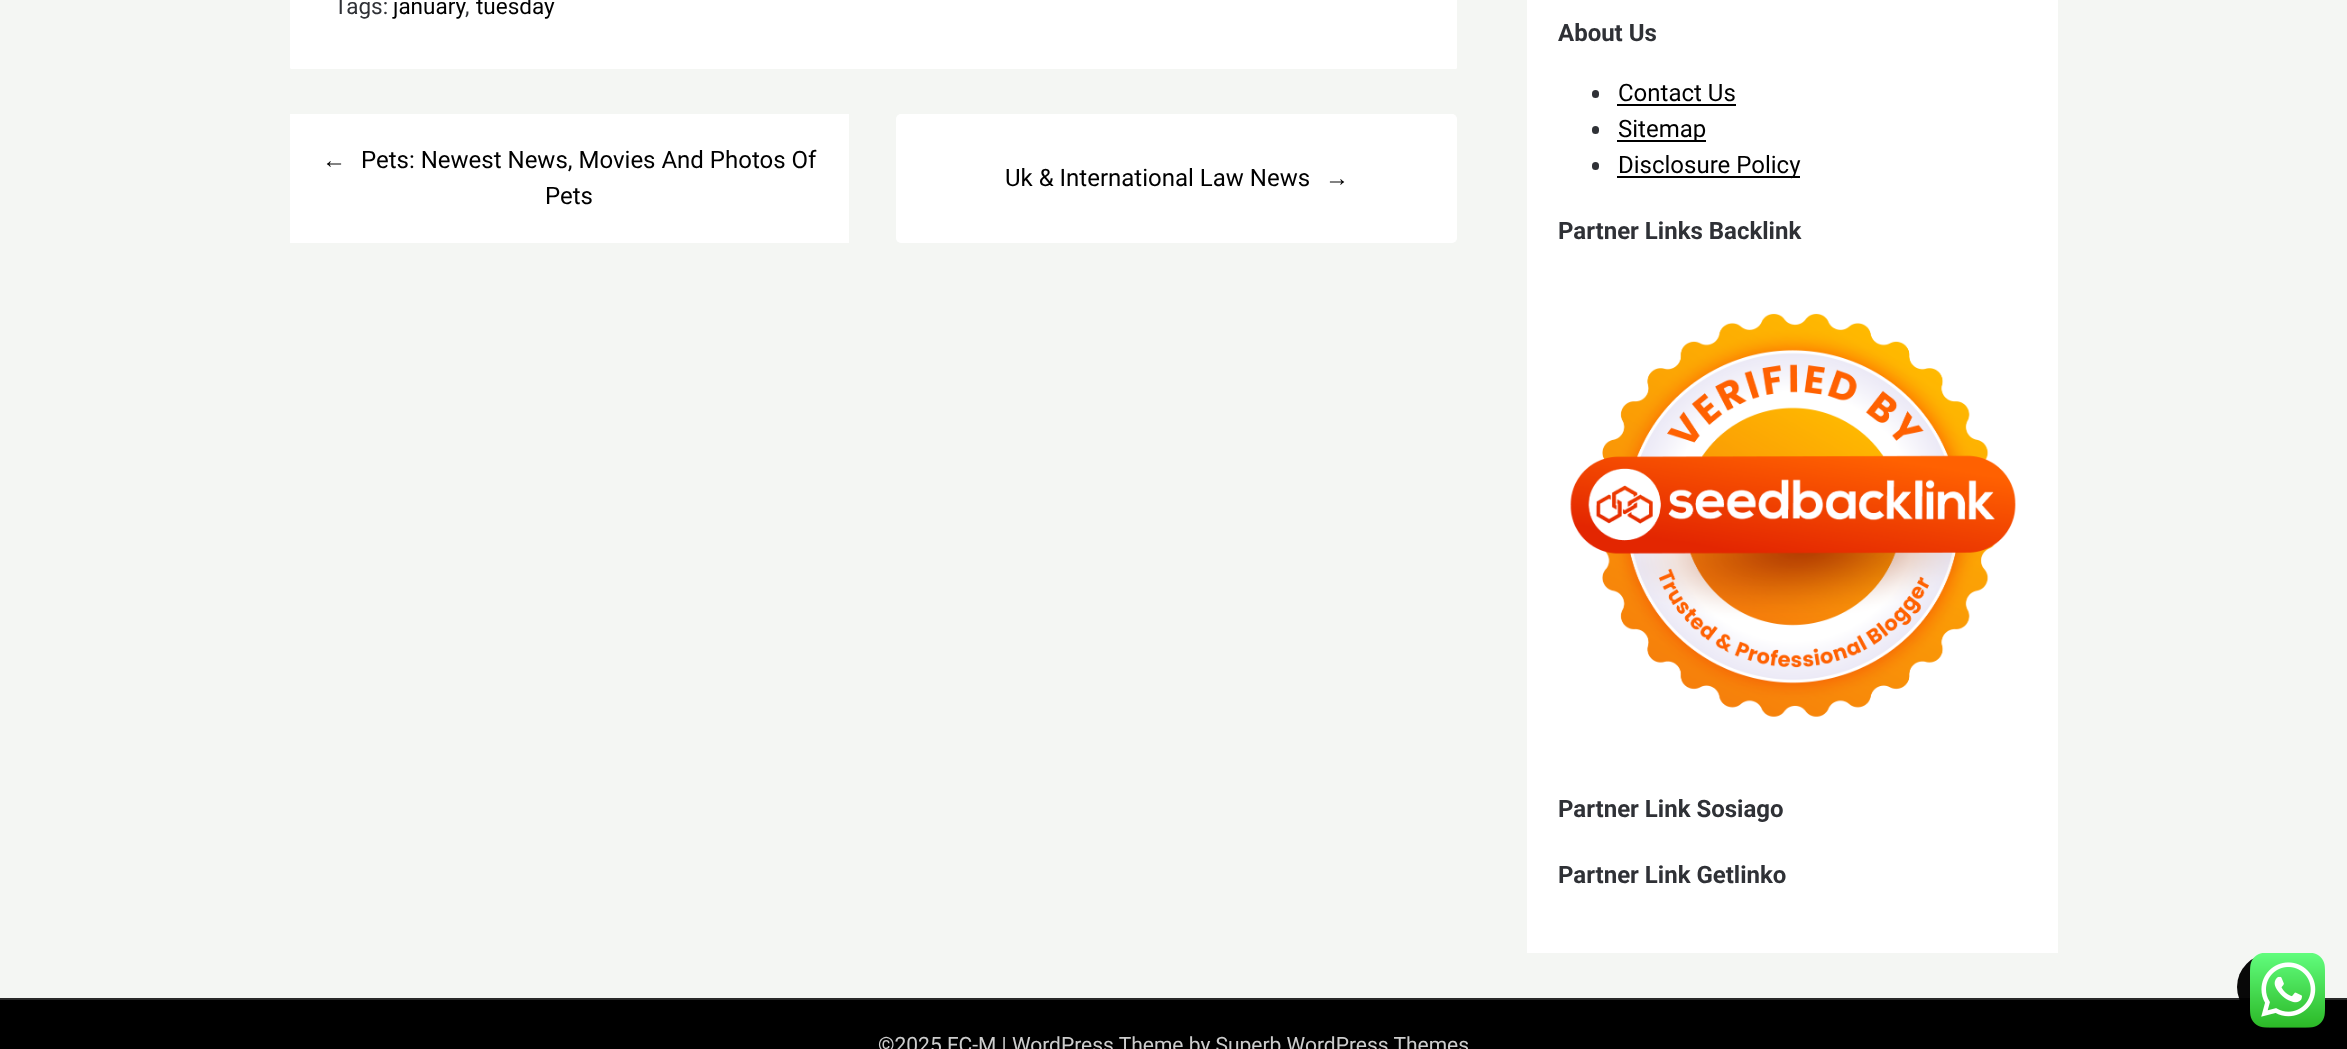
async function draw(canvas) {
  canvas.width = 2347;
  canvas.height = 1049;
  const ctx = canvas.getContext('2d');
  ctx.miterLimit = 4;
  ctx.fontKerning = 'normal';
  function label(s, x, y, font, color) {
    ctx.font = font;
    ctx.fillStyle = color;
    ctx.fillText(s, x, y);
  }
  function rect(x, y, w, h, color) {
    ctx.fillStyle = color;
    ctx.fillRect(x, y, w, h);
  }
  function roundedRect(x, y, w, h, r, color) {
    ctx.fillStyle = color;
    ctx.beginPath();
    ctx.roundRect(x, y, w, h, r);
    ctx.fill();
  }
  async function image(src, x, y, w, h) {
    const img = new Image();
    img.src = src;
    await img.decode();
    ctx.drawImage(img, x, y, w, h);
  }

  rect(0, 0, 2347, 1049, '#f4f6f3');
  roundedRect(290, -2, 1167, 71, 1.5, '#fff');
  label('Tags:', 334, 14, '22.5px Roboto', '#2f3136');
  label('january', 393, 14, '22.5px Roboto', '#000');
  label('tuesday', 476, 14, '22.5px Roboto', '#000');
  label(',', 465, 14, '22.5px Roboto', '#2f3136');
  rect(290, 114, 559, 129, '#fff');
  label('←', 322, 168, '24px Liberation Sans', '#000');
  label('Pets: Newest News, Movies And Photos Of', 361, 168, '24px Roboto', '#000');
  label('Pets', 545, 204, '24px Roboto', '#000');
  roundedRect(896, 114, 561, 129, 5, '#fff');
  label('Uk & International Law News', 1005, 186, '24px Roboto', '#000');
  label('→', 1325, 186, '24px Liberation Sans', '#000');
  rect(1527, 0, 531, 953, '#fff');
  label('About Us', 1558, 41, 'bold 24px Roboto', '#2f3136');
  roundedRect(1592, 90, 7, 8, 3.5, '#2f3136');
  label('Contact Us', 1618, 101, '24px Roboto', '#000');
  rect(1617, 104, 119, 2, '#000');
  roundedRect(1592, 126, 7, 8, 3.5, '#2f3136');
  rect(1617, 140, 89, 2, '#000');
  label('Sitemap', 1618, 137, '24px Roboto', '#000');
  roundedRect(1592, 162, 7, 8, 3.5, '#2f3136');
  rect(1617, 176, 183, 2, '#000');
  label('Disclosure Policy', 1618, 173, '24px Roboto', '#000');
  label('Partner Links Backlink', 1558, 239, 'bold 24px Roboto', '#2f3136');
  await image('assets/img1.png', 1570, 313, 446, 404);
  label('Partner Link Sosiago', 1558, 817, 'bold 24px Roboto', '#2f3136');
  label('Partner Link Getlinko', 1558, 883, 'bold 24px Roboto', '#2f3136');
  rect(0, 1000, 2347, 49, '#000');
  rect(0, 998, 2347, 2, '#292929');
  ctx.fillStyle = '#000000f7';
  ctx.beginPath();
  ctx.arc(2270, 987, 33, 0, 2 * Math.PI);
  ctx.fill();
  await image('assets/img2.png', 2250, 953, 75, 75);
  label('©2025 FC-M | WordPress Theme by Superb WordPress Themes', 878, 1052, '21px Roboto', '#ccc');
}

draw(document.querySelector('canvas'));
